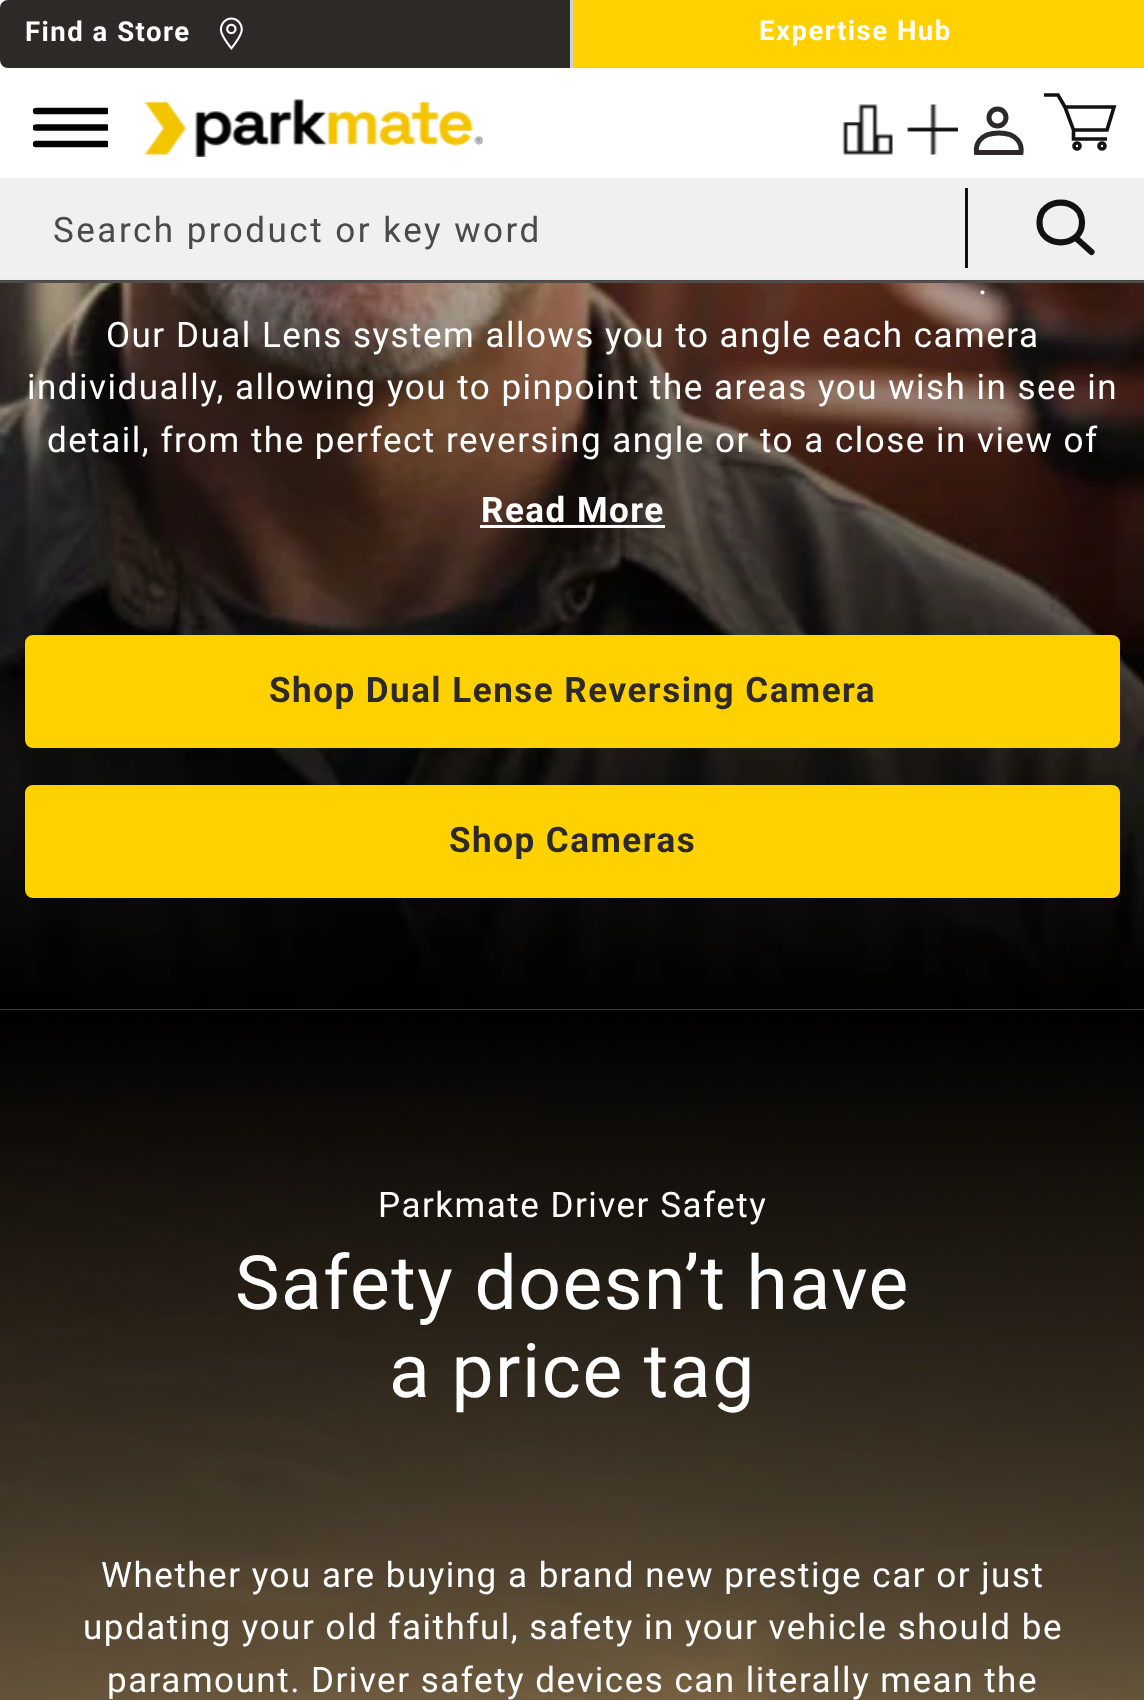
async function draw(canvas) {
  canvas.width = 1144;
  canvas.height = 1700;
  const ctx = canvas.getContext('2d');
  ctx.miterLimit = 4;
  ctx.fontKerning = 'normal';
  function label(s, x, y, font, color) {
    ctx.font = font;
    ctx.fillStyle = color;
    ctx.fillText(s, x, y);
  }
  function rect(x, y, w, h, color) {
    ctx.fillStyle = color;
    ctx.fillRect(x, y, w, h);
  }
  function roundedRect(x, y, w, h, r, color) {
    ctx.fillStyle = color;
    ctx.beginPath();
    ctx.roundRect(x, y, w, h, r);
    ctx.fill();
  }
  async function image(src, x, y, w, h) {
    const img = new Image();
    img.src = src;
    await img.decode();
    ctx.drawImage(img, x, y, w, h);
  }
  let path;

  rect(0, 0, 1144, 1700, '#fff');
  rect(0, 280, 1144, 3, '#504e4c');
  rect(0, 278, 1144, 3, '#12121214');
  roundedRect(0, 0, 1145, 68, 8, '#2d2926');
  rect(570, 0, 3, 68, '#d0d0d0');
  ctx.letterSpacing = '1.5px';
  label('Find a Store', 25, 41, 'bold 27.5px Roboto', '#fff');
  await image('assets/img1.png', 219, 17, 24, 33);
  rect(573, 0, 571, 68, '#ffd100');
  label('Expertise Hub', 759, 40, 'bold 27.5px Roboto', '#fff');
  ctx.save();
  ctx.beginPath();
  ctx.rect(33, 103, 75, 50);
  ctx.clip();
  path = new Path2D('M36 111H106');
  ctx.strokeStyle = '#000';
  ctx.lineWidth = 6.7;
  ctx.lineCap = 'round';
  ctx.stroke(path);
  path = new Path2D('M36 127.5H106');
  ctx.stroke(path);
  path = new Path2D('M36 144H106');
  ctx.stroke(path);
  ctx.restore();
  await image('assets/img2.png', 144, 99, 339, 58);
  await image('assets/img3.png', 842, 104, 51, 51);
  await image('assets/img4.png', 907, 104, 51, 51);
  ctx.beginPath();
  ctx.arc(997.5, 117.5, 8.5, 0, 2 * Math.PI);
  ctx.strokeStyle = '#2d2926';
  ctx.lineWidth = 5;
  ctx.stroke();
  path = new Path2D('M999 133C978.5 133 975.5 146 976.5 152.5H1021C1022 146 1019 133 999 133Z');
  ctx.stroke(path);
  path = new Path2D('M1044 95H1058L1065 107');
  ctx.strokeStyle = '#121212';
  ctx.lineWidth = 3.6;
  ctx.stroke(path);
  path = new Path2D('M1073.5 130H1107L1114 107H1065ZM1073.5 130V139H1107M1080 146C1080 150 1074 150 1074 146C1074 142 1080 142 1080 146ZM1105 146C1105 150 1099 150 1099 146C1099 142 1105 142 1105 146Z');
  ctx.stroke(path);
  rect(0, 178, 1144, 100, '#f0f0f0');
  ctx.letterSpacing = '2.5px';
  label('Search product or key word', 53, 242, '35px Roboto', '#4a4a4a');
  rect(965, 188, 3, 80, '#121212');
  path = new Path2D('M1082 222.5C1082 249 1039.5 249 1039.5 222.5C1039.5 196 1082 196 1082 222.5Z');
  ctx.lineWidth = 6.2;
  ctx.stroke(path);
  path = new Path2D('M1076.5 238.5L1091.5 252');
  ctx.lineCap = 'round';
  ctx.stroke(path);
  await image('assets/img5.png', 0, 283, 1144, 727);
  ctx.letterSpacing = '1.5px';
  label('.', 978, 294, '35px Roboto', '#fff');
  label('Our Dual Lens system allows you to angle each camera', 106, 347, '35px Roboto', '#fff');
  label('individually, allowing you to pinpoint the areas you wish in see in', 27, 399, '35px Roboto', '#fff');
  label('detail, from the perfect reversing angle or to a close in view of', 47, 452, '35px Roboto', '#fff');
  label('Read More', 481, 522, 'bold 35px Roboto', '#fff');
  rect(480, 525, 185, 3, '#fff');
  ctx.fillStyle = '#ffd100';
  ctx.beginPath();
  ctx.roundRect(26.5, 636.5, 1092, 110, 6.5);
  ctx.fill();
  ctx.strokeStyle = '#ffd100';
  ctx.lineWidth = 3;
  ctx.stroke();
  label('Shop Dual Lense Reversing Camera', 269, 702, 'bold 35px Roboto', '#2d2926');
  ctx.fillStyle = '#ffd100';
  ctx.beginPath();
  ctx.roundRect(26.5, 786.5, 1092, 110, 6.5);
  ctx.fill();
  ctx.stroke();
  label('Shop Cameras', 449, 852, 'bold 35px Roboto', '#2d2926');
  await image('assets/img6.png', 0, 1009, 1144, 691);
  await image('assets/img7.png', 0, 1009, 1144, 691);
  label('Parkmate Driver Safety', 378, 1217, '35px Roboto', '#fff');
  label('Safety doesn’t have', 235, 1309, '75px Roboto', '#fff');
  label('a price tag', 389, 1397, '75px Roboto', '#fff');
  label('Whether you are buying a brand new prestige car or just', 101, 1587, '35px Roboto', '#fff');
  label('updating your old faithful, safety in your vehicle should be', 83, 1639, '35px Roboto', '#fff');
  label('paramount. Driver safety devices can literally mean the', 107, 1692, '35px Roboto', '#fff');
}

draw(document.querySelector('canvas'));
